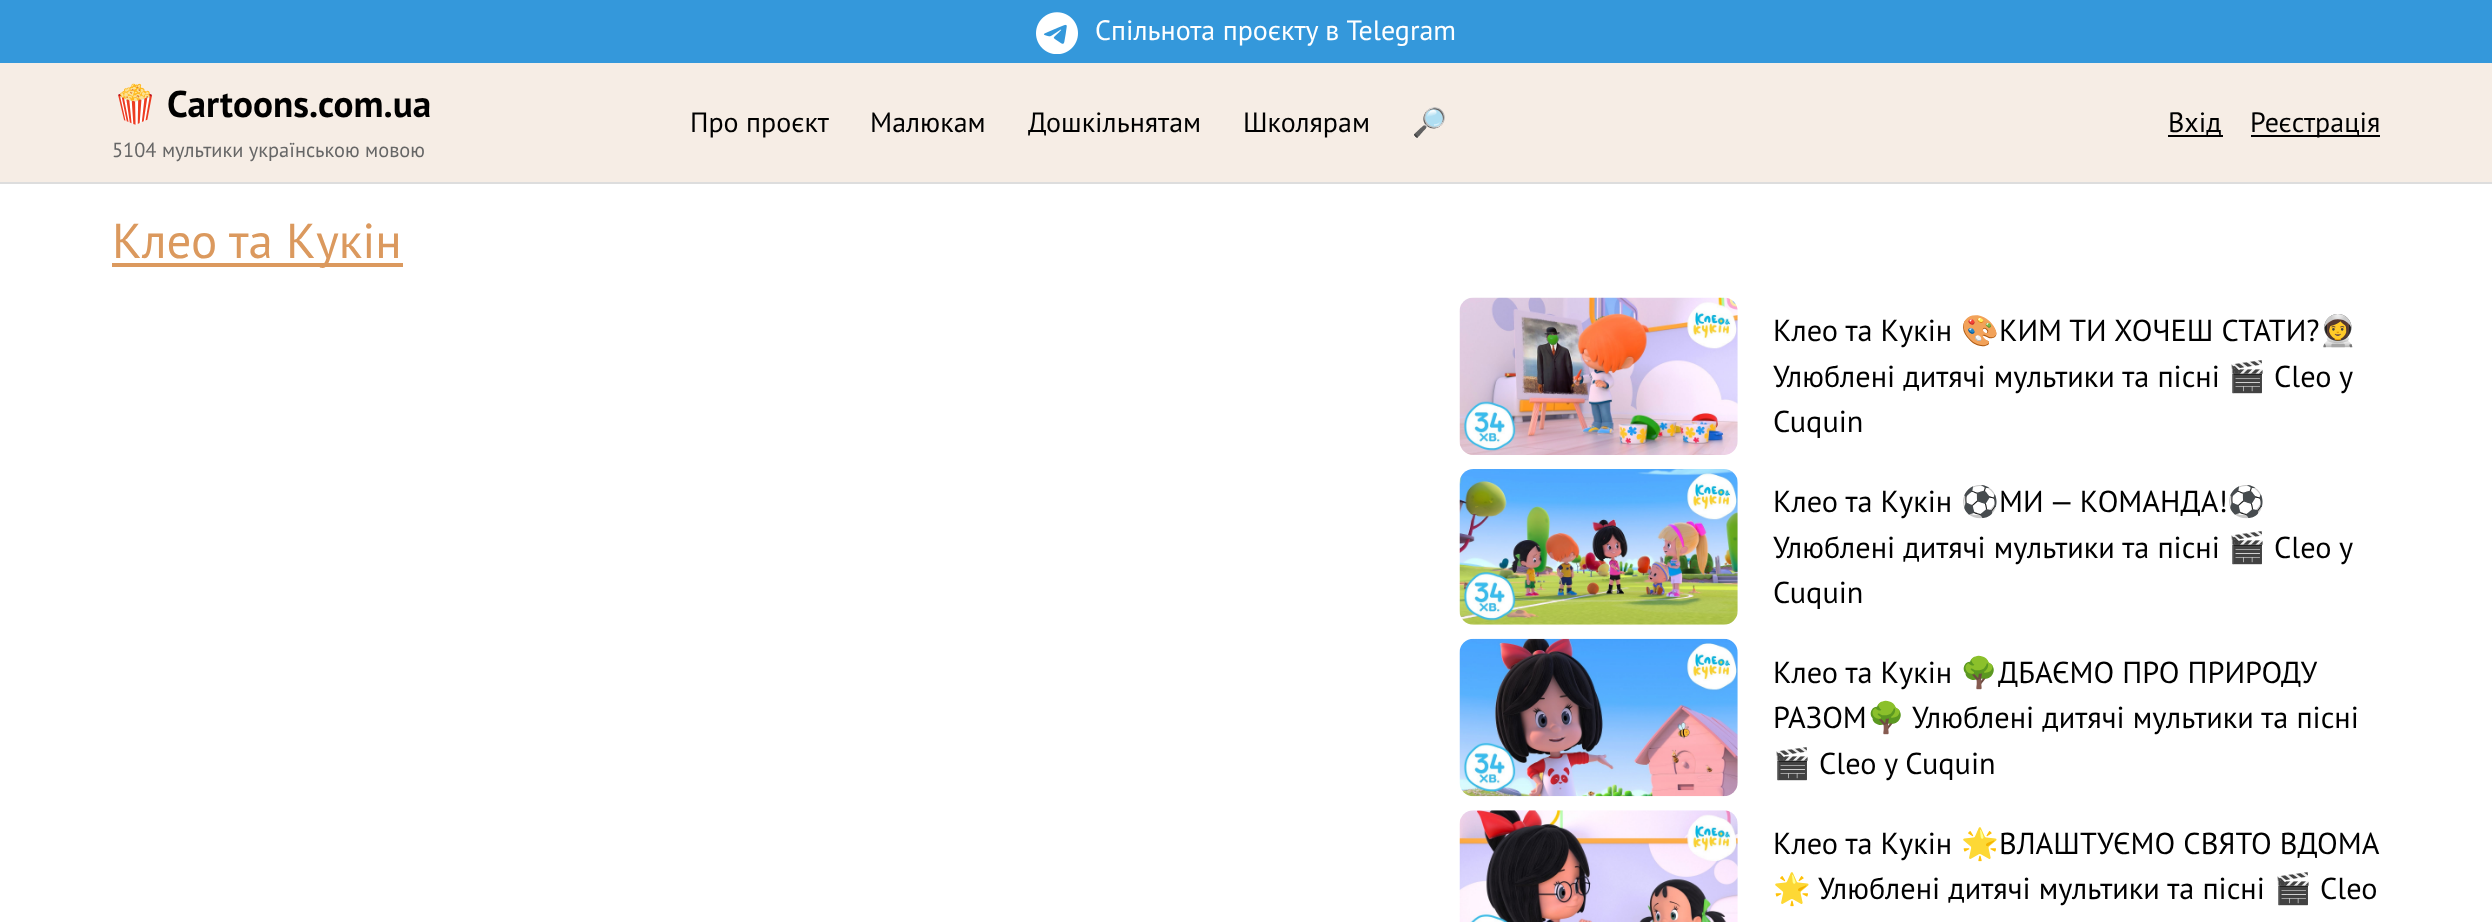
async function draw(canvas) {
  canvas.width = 2492;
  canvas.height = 922;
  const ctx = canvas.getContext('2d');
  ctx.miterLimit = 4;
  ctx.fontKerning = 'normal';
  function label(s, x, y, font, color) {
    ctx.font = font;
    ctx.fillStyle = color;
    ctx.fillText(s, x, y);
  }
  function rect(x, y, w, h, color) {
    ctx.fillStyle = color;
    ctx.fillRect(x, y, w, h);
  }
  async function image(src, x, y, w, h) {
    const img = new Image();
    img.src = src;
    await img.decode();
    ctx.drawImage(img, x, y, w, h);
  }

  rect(0, 0, 2492, 922, '#fff');
  rect(0, 0, 2492, 63, '#3498db');
  await image('assets/img1.png', 1036, 12, 42, 42);
  label('Спільнота проєкту в Telegram', 1095, 40, '28px PT Sans', '#fff');
  rect(0, 63, 2492, 119, '#f6ede5');
  rect(0, 182, 2492, 2, '#ddd');
  label('🍿', 112, 117, 'bold 37.25px Noto Color Emoji', '#000');
  label('Cartoons.com.ua', 167, 117, 'bold 37.25px PT Sans', '#000');
  label('5104 мультики українською мовою', 112, 157, '20.4px PT Sans', '#666');
  label('Про проєкт', 690, 132, '28px PT Sans', '#000');
  label('Малюкам', 870, 132, '28px PT Sans', '#000');
  label('Дошкільнятам', 1028, 132, '28px PT Sans', '#000');
  label('Школярам', 1243, 132, '28px PT Sans', '#000');
  label('🔎', 1412, 132, '28px Noto Color Emoji', '#000');
  rect(2168, 135, 55, 2, '#000');
  label('Вхід', 2168, 132, '28px PT Sans', '#000');
  rect(2251, 135, 129, 2, '#000');
  label('Реєстрація', 2250, 132, '28px PT Sans', '#000');
  rect(112, 263, 291, 4, '#db995e');
  label('Клео та Кукін', 112, 258, '49px PT Sans', '#db995e');
  await image('assets/img2.png', 1459, 297, 279, 158);
  label('Клео та Кукiн', 1773, 341, '30.3px PT Sans', '#000');
  label('🎨', 1961, 341, '30.3px Noto Color Emoji', '#000');
  label('КИМ ТИ ХОЧЕШ СТАТИ?', 1999, 341, '30.3px PT Sans', '#000');
  label('👩‍🚀', 2319, 341, '30.3px Noto Color Emoji', '#000');
  label('Улюблені дитячі мультики та пісні', 1773, 387, '30.3px PT Sans', '#000');
  label('🎬', 2228, 387, '30.3px Noto Color Emoji', '#000');
  label('Cleo y', 2274, 387, '30.3px PT Sans', '#000');
  label('Cuquin', 1773, 432, '30.3px PT Sans', '#000');
  await image('assets/img3.png', 1459, 469, 279, 156);
  label('Клео та Кукiн', 1773, 512, '30.3px PT Sans', '#000');
  label('⚽', 1961, 512, '30.3px Noto Color Emoji', '#000');
  label('МИ — КОМАНДА!', 1999, 512, '30.3px PT Sans', '#000');
  label('⚽', 2227, 512, '30.3px Noto Color Emoji', '#000');
  label('Улюблені дитячі мультики та пісні', 1773, 558, '30.3px PT Sans', '#000');
  label('🎬', 2228, 558, '30.3px Noto Color Emoji', '#000');
  label('Cleo y', 2274, 558, '30.3px PT Sans', '#000');
  label('Cuquin', 1773, 603, '30.3px PT Sans', '#000');
  await image('assets/img4.png', 1459, 638, 279, 159);
  label('Клео та Кукiн', 1773, 683, '30.3px PT Sans', '#000');
  label('🌳', 1960, 683, '30.3px Noto Color Emoji', '#000');
  label('ДБАЄМО ПРО ПРИРОДУ', 1998, 683, '30.3px PT Sans', '#000');
  label('РАЗОМ', 1773, 728, '30.3px PT Sans', '#000');
  label('🌳', 1867, 728, '30.3px Noto Color Emoji', '#000');
  label('Улюблені дитячі мультики та пісні', 1912, 728, '30.3px PT Sans', '#000');
  label('🎬', 1773, 774, '30.3px Noto Color Emoji', '#000');
  label('Cleo y Cuquin', 1819, 774, '30.3px PT Sans', '#000');
  await image('assets/img5.png', 1459, 810, 279, 112);
  label('Клео та Кукiн', 1773, 854, '30.3px PT Sans', '#000');
  label('🌟', 1961, 854, '30.3px Noto Color Emoji', '#000');
  label('ВЛАШТУЄМО СВЯТО ВДОМА', 1999, 854, '30.3px PT Sans', '#000');
  label('🌟', 1773, 899, '30.3px Noto Color Emoji', '#000');
  label('Улюблені дитячі мультики та пісні', 1818, 899, '30.3px PT Sans', '#000');
  label('🎬', 2274, 899, '30.3px Noto Color Emoji', '#000');
  label('Cleo', 2320, 899, '30.3px PT Sans', '#000');
}

draw(document.querySelector('canvas'));
